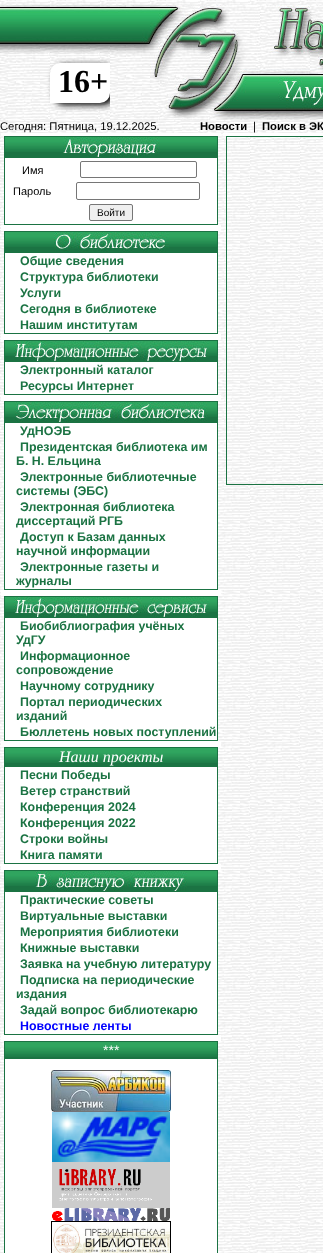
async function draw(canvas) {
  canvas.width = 323;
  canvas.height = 1253;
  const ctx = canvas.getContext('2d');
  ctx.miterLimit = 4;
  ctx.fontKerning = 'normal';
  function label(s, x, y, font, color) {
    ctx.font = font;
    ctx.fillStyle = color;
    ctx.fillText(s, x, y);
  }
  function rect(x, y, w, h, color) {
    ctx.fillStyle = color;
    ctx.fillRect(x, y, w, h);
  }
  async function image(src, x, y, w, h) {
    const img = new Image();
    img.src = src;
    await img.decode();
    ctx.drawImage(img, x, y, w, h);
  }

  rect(0, 0, 323, 1253, '#fff');
  await image('assets/img1.png', 0, 0, 323, 5);
  await image('assets/img2.png', 0, 120, 323, 1133);
  await image('assets/img3.png', 0, 5, 110, 115);
  ctx.fillStyle = '#000';
  ctx.filter = 'blur(3px)';
  ctx.beginPath();
  ctx.roundRect(54, 65, 60, 40, 10);
  ctx.fill();
  ctx.filter = 'none';
  ctx.fillStyle = '#fff';
  ctx.beginPath();
  ctx.roundRect(50, 63, 60, 40, [10, 0, 10, 0]);
  ctx.fill();
  label('16+', 58, 92, 'bold 32px Liberation Serif', '#000');
  await image('assets/img4.png', 110, 5, 213, 115);
  label('Сегодня: Пятница, 19.12.2025.', 0, 130, '11.25px Liberation Sans', '#000');
  label('Новости', 200, 130, 'bold 11.25px Liberation Sans', '#000');
  label('|', 253, 130, '11.25px Liberation Sans', '#000');
  label('Поиск в ЭК', 262, 130, 'bold 11.25px Liberation Sans', '#000');
  rect(1, 133, 220, 3, '#fff');
  rect(4, 136, 214, 89, '#1b7343');
  await image('assets/img5.png', 5, 137, 212, 15);
  await image('assets/img6.png', 63, 137, 96, 20);
  rect(5, 158, 212, 66, '#fff');
  label('Имя', 22, 174, '11px Liberation Sans', '#000');
  ctx.beginPath();
  ctx.roundRect(80.5, 161.5, 116, 16, 1.5);
  ctx.strokeStyle = '#767676';
  ctx.stroke();
  label('Пароль', 13, 195, '11px Liberation Sans', '#000');
  ctx.beginPath();
  ctx.roundRect(76.5, 182.5, 123, 17, 1.5);
  ctx.stroke();
  ctx.fillStyle = '#efefef';
  ctx.beginPath();
  ctx.roundRect(89.5, 204.5, 43, 16, 1.5);
  ctx.fill();
  ctx.stroke();
  label('Войти', 97, 216, '10px Liberation Sans', '#000');
  rect(1, 225, 220, 6, '#fff');
  rect(4, 231, 214, 103, '#1b7343');
  await image('assets/img5.png', 5, 232, 212, 15);
  await image('assets/img7.png', 54, 232, 115, 20);
  rect(5, 253, 212, 80, '#fff');
  label('Общие сведения', 20, 265, 'bold 12.4px Liberation Sans', '#1b7343');
  label('Структура библиотеки', 20, 281, 'bold 12.4px Liberation Sans', '#1b7343');
  label('Услуги', 20, 297, 'bold 12.4px Liberation Sans', '#1b7343');
  label('Сегодня в библиотеке', 20, 313, 'bold 12.4px Liberation Sans', '#1b7343');
  label('Нашим институтам', 20, 329, 'bold 12.4px Liberation Sans', '#1b7343');
  rect(1, 334, 220, 6, '#fff');
  rect(4, 340, 214, 55, '#1b7343');
  await image('assets/img5.png', 5, 341, 212, 15);
  await image('assets/img8.png', 14, 341, 195, 20);
  rect(5, 362, 212, 32, '#fff');
  label('Электронный каталог', 20, 374, 'bold 12.4px Liberation Sans', '#1b7343');
  label('Ресурсы Интернет', 20, 390, 'bold 12.4px Liberation Sans', '#1b7343');
  rect(1, 395, 220, 6, '#fff');
  rect(4, 401, 214, 189, '#1b7343');
  await image('assets/img5.png', 5, 402, 212, 15);
  await image('assets/img9.png', 15, 402, 193, 20);
  rect(5, 423, 212, 166, '#fff');
  label('УдНОЭБ', 20, 435, 'bold 12.4px Liberation Sans', '#1b7343');
  label('Президентская библиотека им', 20, 451, 'bold 12.4px Liberation Sans', '#1b7343');
  label('Б. Н. Ельцина', 16, 465, 'bold 12.4px Liberation Sans', '#1b7343');
  label('Электронные библиотечные', 20, 481, 'bold 12.4px Liberation Sans', '#1b7343');
  label('системы (ЭБС)', 16, 495, 'bold 12.4px Liberation Sans', '#1b7343');
  label('Электронная библиотека', 20, 511, 'bold 12.4px Liberation Sans', '#1b7343');
  label('диссертаций РГБ', 16, 525, 'bold 12.4px Liberation Sans', '#1b7343');
  label('Доступ к Базам данных', 20, 541, 'bold 12.4px Liberation Sans', '#1b7343');
  label('научной информации', 16, 555, 'bold 12.4px Liberation Sans', '#1b7343');
  label('Электронные газеты и', 20, 571, 'bold 12.4px Liberation Sans', '#1b7343');
  label('журналы', 16, 585, 'bold 12.4px Liberation Sans', '#1b7343');
  rect(1, 590, 220, 6, '#fff');
  rect(4, 596, 214, 145, '#1b7343');
  await image('assets/img5.png', 5, 597, 212, 15);
  await image('assets/img10.png', 14, 597, 195, 20);
  rect(5, 618, 212, 122, '#fff');
  label('Биобиблиография учёных', 20, 630, 'bold 12.4px Liberation Sans', '#1b7343');
  label('УдГУ', 16, 644, 'bold 12.4px Liberation Sans', '#1b7343');
  label('Информационное', 20, 660, 'bold 12.4px Liberation Sans', '#1b7343');
  label('сопровождение', 16, 674, 'bold 12.4px Liberation Sans', '#1b7343');
  label('Научному сотруднику', 20, 690, 'bold 12.4px Liberation Sans', '#1b7343');
  label('Портал периодических', 20, 706, 'bold 12.4px Liberation Sans', '#1b7343');
  label('изданий', 16, 720, 'bold 12.4px Liberation Sans', '#1b7343');
  label('Бюллетень новых поступлений', 20, 736, 'bold 12.4px Liberation Sans', '#1b7343');
  rect(1, 741, 220, 6, '#fff');
  rect(4, 747, 214, 117, '#1b7343');
  await image('assets/img5.png', 5, 748, 212, 15);
  label('Наши проекты', 59, 762, 'italic 16px Liberation Serif', '#fff');
  rect(5, 767, 212, 96, '#fff');
  label('Песни Победы', 20, 779, 'bold 12.4px Liberation Sans', '#1b7343');
  label('Ветер странствий', 20, 795, 'bold 12.4px Liberation Sans', '#1b7343');
  label('Конференция 2024', 20, 811, 'bold 12.4px Liberation Sans', '#1b7343');
  label('Конференция 2022', 20, 827, 'bold 12.4px Liberation Sans', '#1b7343');
  label('Строки войны', 20, 843, 'bold 12.4px Liberation Sans', '#1b7343');
  label('Книга памяти', 20, 859, 'bold 12.4px Liberation Sans', '#1b7343');
  rect(1, 864, 220, 6, '#fff');
  rect(4, 870, 214, 165, '#1b7343');
  await image('assets/img5.png', 5, 871, 212, 15);
  await image('assets/img11.png', 35, 871, 152, 20);
  rect(5, 892, 212, 142, '#fff');
  label('Практические советы', 20, 904, 'bold 12.4px Liberation Sans', '#1b7343');
  label('Виртуальные выставки', 20, 920, 'bold 12.4px Liberation Sans', '#1b7343');
  label('Мероприятия библиотеки', 20, 936, 'bold 12.4px Liberation Sans', '#1b7343');
  label('Книжные выставки', 20, 952, 'bold 12.4px Liberation Sans', '#1b7343');
  label('Заявка на учебную литературу', 20, 968, 'bold 12.4px Liberation Sans', '#1b7343');
  label('Подписка на периодические', 20, 984, 'bold 12.4px Liberation Sans', '#1b7343');
  label('издания', 16, 998, 'bold 12.4px Liberation Sans', '#1b7343');
  label('Задай вопрос библиотекарю', 20, 1014, 'bold 12.4px Liberation Sans', '#1b7343');
  label('Новостные ленты', 20, 1030, 'bold 12.4px Liberation Sans', '#00f');
  rect(1, 1035, 220, 6, '#fff');
  rect(4, 1041, 214, 212, '#1b7343');
  await image('assets/img5.png', 5, 1042, 212, 15);
  label('***', 103, 1055, '14px Liberation Sans', '#fff');
  rect(5, 1059, 212, 194, '#fff');
  await image('assets/img12.png', 51, 1070, 120, 42);
  await image('assets/img13.png', 52, 1112, 118, 50);
  await image('assets/img14.png', 52, 1162, 118, 46);
  await image('assets/img15.png', 52, 1208, 118, 13);
  ctx.strokeStyle = '#000';
  ctx.strokeRect(51.5, 1221.5, 119, 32);
  await image('assets/img16.png', 52, 1224, 118, 29);
  rect(223, 133, 100, 3, '#fff');
  ctx.strokeStyle = '#1b7343';
  ctx.strokeRect(226.5, 136.5, 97, 348);
}

draw(document.querySelector('canvas'));
